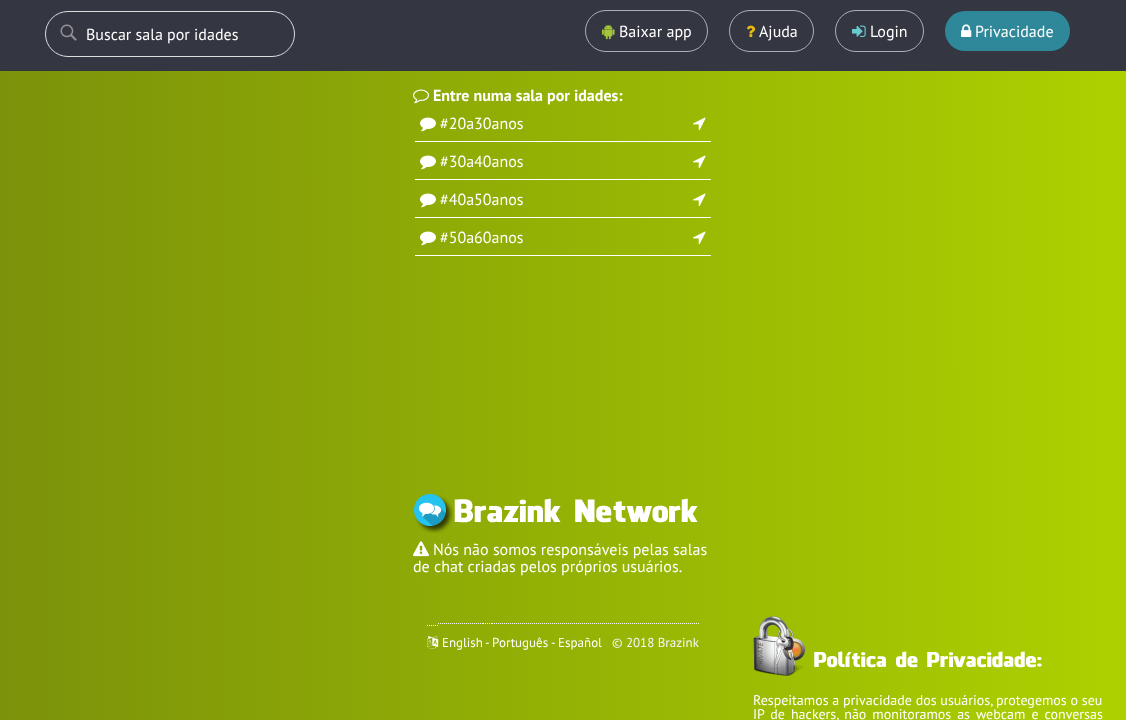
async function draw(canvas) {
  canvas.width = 1126;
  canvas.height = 720;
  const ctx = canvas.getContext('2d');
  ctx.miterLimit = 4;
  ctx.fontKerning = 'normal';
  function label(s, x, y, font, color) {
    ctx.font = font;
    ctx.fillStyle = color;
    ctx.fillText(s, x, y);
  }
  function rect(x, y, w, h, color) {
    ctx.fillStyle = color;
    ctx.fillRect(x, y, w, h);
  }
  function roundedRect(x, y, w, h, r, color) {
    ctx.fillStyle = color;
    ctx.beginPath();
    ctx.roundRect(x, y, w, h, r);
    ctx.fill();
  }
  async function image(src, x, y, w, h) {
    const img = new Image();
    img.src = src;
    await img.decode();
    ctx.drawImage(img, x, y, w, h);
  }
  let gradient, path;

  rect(0, 0, 1126, 720, '#fff');
  gradient = ctx.createLinearGradient(0, 328, 1126, 327);
  gradient.addColorStop(0, '#7b920a');
  gradient.addColorStop(1, '#add100');
  ctx.fillStyle = gradient;
  ctx.fillRect(0, 71, 1126, 649);
  rect(0, 0, 1126, 71, '#343642');
  await image('assets/img1.png', 60, 24, 17, 17);
  ctx.beginPath();
  ctx.roundRect(45.5, 11.5, 249, 45, 22.5);
  ctx.strokeStyle = '#ddd';
  ctx.stroke();
  label('Buscar sala por idades', 86, 40, '16px PT Sans', '#fff');
  ctx.beginPath();
  ctx.roundRect(585.5, 10.5, 122, 41, 20.5);
  ctx.strokeStyle = '#aeafb3';
  ctx.stroke();
  await image('assets/img2.png', 602, 24, 13, 16);
  label('Baixar app', 619, 37, '16px PT Sans', '#fff');
  ctx.beginPath();
  ctx.roundRect(729.5, 10.5, 84, 41, 20.5);
  ctx.stroke();
  await image('assets/img3.png', 746, 25, 10, 12);
  label('Ajuda', 759, 37, '16px PT Sans', '#fff');
  ctx.beginPath();
  ctx.roundRect(835.5, 10.5, 88, 41, 20.5);
  ctx.stroke();
  await image('assets/img4.png', 852, 25, 14, 12);
  label('Login', 870, 37, '16px PT Sans', '#fff');
  roundedRect(945, 11, 125, 40, 20, '#2f889a');
  await image('assets/img5.png', 961, 24, 11, 13);
  label('Privacidade', 975, 37, '16px PT Sans', '#fff');
  await image('assets/img6.png', 413, 89, 16, 15);
  label('Entre numa sala por idades:', 433, 101, 'bold 16px PT Sans', '#fff');
  rect(415, 141, 296, 1, '#fff');
  await image('assets/img7.png', 420, 117, 16, 15);
  label('#20a30anos', 440, 129, '16px PT Sans', '#fff');
  await image('assets/img8.png', 693, 117, 13, 14);
  rect(415, 179, 296, 1, '#fff');
  await image('assets/img7.png', 420, 155, 16, 15);
  label('#30a40anos', 440, 167, '16px PT Sans', '#fff');
  await image('assets/img8.png', 693, 155, 13, 14);
  rect(415, 217, 296, 1, '#fff');
  await image('assets/img7.png', 420, 193, 16, 15);
  label('#40a50anos', 440, 205, '16px PT Sans', '#fff');
  await image('assets/img8.png', 693, 193, 13, 14);
  rect(415, 255, 296, 1, '#fff');
  await image('assets/img7.png', 420, 231, 16, 15);
  label('#50a60anos', 440, 243, '16px PT Sans', '#fff');
  await image('assets/img8.png', 693, 231, 13, 14);
  await image('assets/img9.png', 414, 494, 284, 39);
  await image('assets/img10.png', 413, 541, 16, 16);
  label('Nós não somos responsáveis pelas salas', 433, 555, '16px PT Sans', '#fff');
  label('de chat criadas pelos próprios usuários.', 413, 572, '16px PT Sans', '#fff');
  await image('assets/img11.png', 753, 616, 289, 60);
  label('Respeitamos a privacidade dos usuários, protegemos o seu', 753, 705, '14px PT Sans', '#fff');
  ctx.wordSpacing = '2.25px';
  label('IP de hackers, não monitoramos as webcam e conversas', 753, 719, '14px PT Sans', '#fff');
  path = new Path2D('M427 625.5H438');
  ctx.strokeStyle = '#f6f6f6';
  ctx.setLineDash([1, 1]);
  ctx.stroke(path);
  path = new Path2D('M438 623.5H439M440 623.5H441');
  ctx.setLineDash([]);
  ctx.stroke(path);
  path = new Path2D('M442 623.5H483M483 623.5H492');
  ctx.setLineDash([1, 1]);
  ctx.stroke(path);
  path = new Path2D('M492 623.5H548');
  ctx.stroke(path);
  path = new Path2D('M548 623.5H558M558 623.5H602M602 623.5H612');
  ctx.stroke(path);
  path = new Path2D('M612 623.5H699');
  ctx.stroke(path);
  await image('assets/img12.png', 427, 635, 12, 14);
  ctx.wordSpacing = '0px';
  label('English', 442, 647, '13px PT Sans', '#fff');
  label('- Português', 485, 647, '13px PT Sans', '#fff');
  label('- Español', 551, 647, '13px PT Sans', '#fff');
  label('© 2018 Brazink', 612, 647, '13px PT Sans', '#f6f6f6');
}

draw(document.querySelector('canvas'));
